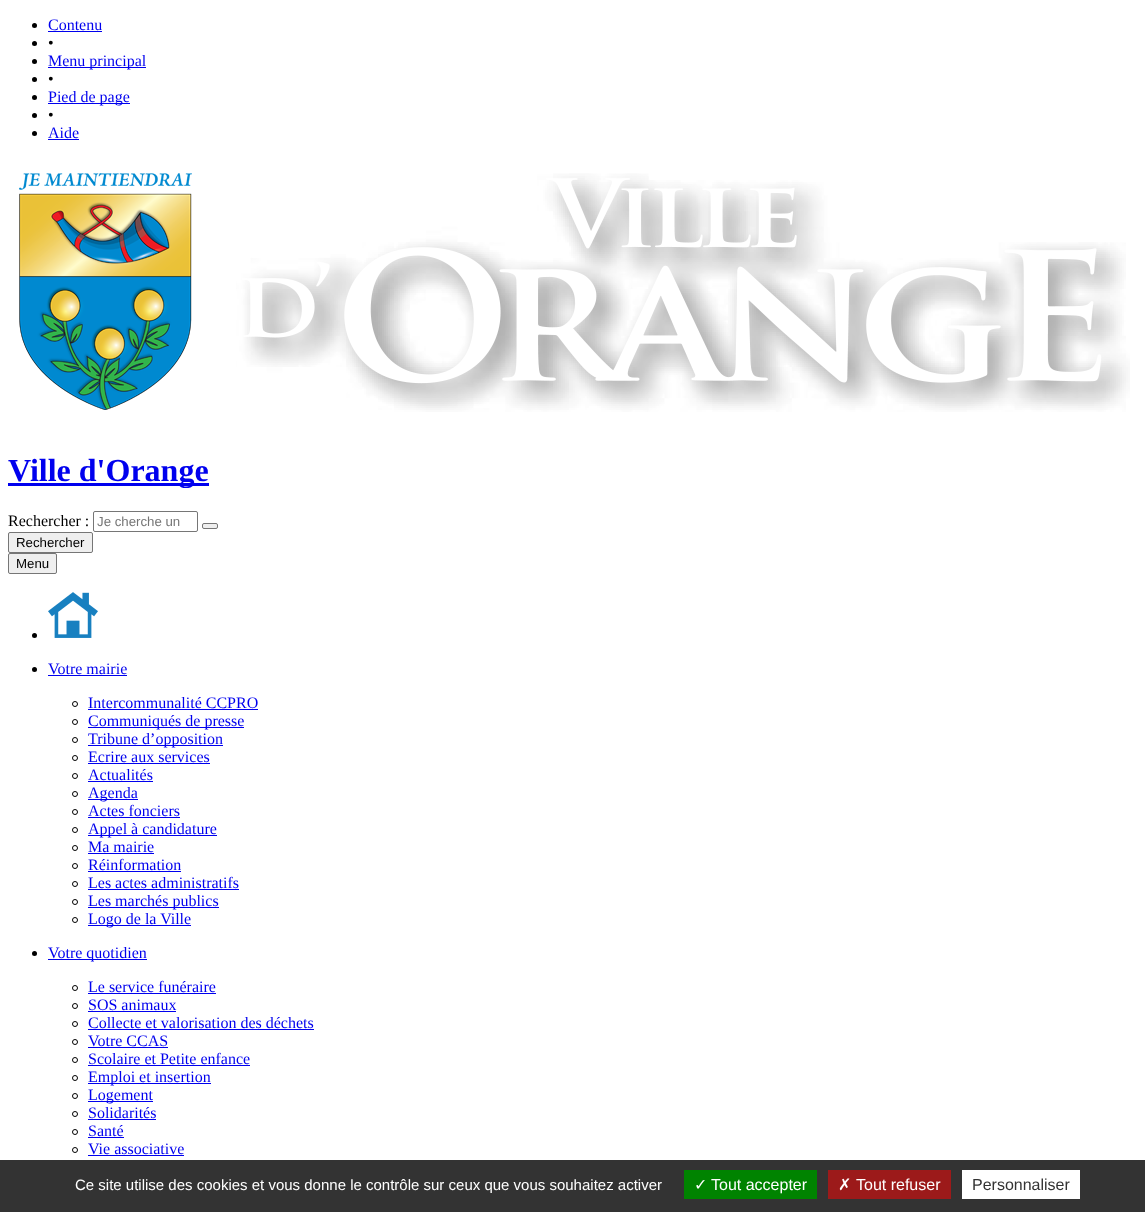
async function draw(canvas) {
  canvas.width = 1145;
  canvas.height = 1212;
  const ctx = canvas.getContext('2d');
  ctx.miterLimit = 4;
  ctx.fontKerning = 'normal';
  function label(s, x, y, font, color) {
    ctx.font = font;
    ctx.fillStyle = color;
    ctx.fillText(s, x, y);
  }
  function rect(x, y, w, h, color) {
    ctx.fillStyle = color;
    ctx.fillRect(x, y, w, h);
  }
  async function image(src, x, y, w, h) {
    const img = new Image();
    img.src = src;
    await img.decode();
    ctx.drawImage(img, x, y, w, h);
  }

  rect(0, 0, 1145, 1212, '#fff');
  ctx.fillStyle = '#000';
  ctx.beginPath();
  ctx.arc(34.5, 25.5, 2.5, 0, 2 * Math.PI);
  ctx.fill();
  label('Contenu', 48, 30, '16px Liberation Serif', '#00e');
  rect(48, 31, 54, 1, '#00e');
  ctx.fillStyle = '#000';
  ctx.beginPath();
  ctx.arc(34.5, 43.5, 2.5, 0, 2 * Math.PI);
  ctx.fill();
  label('•', 48, 48, '16px Liberation Serif', '#000');
  ctx.beginPath();
  ctx.arc(34.5, 61.5, 2.5, 0, 2 * Math.PI);
  ctx.fill();
  rect(48, 67, 98, 1, '#00e');
  label('Menu principal', 48, 66, '16px Liberation Serif', '#00e');
  ctx.fillStyle = '#000';
  ctx.beginPath();
  ctx.arc(34.5, 79.5, 2.5, 0, 2 * Math.PI);
  ctx.fill();
  label('•', 48, 84, '16px Liberation Serif', '#000');
  ctx.beginPath();
  ctx.arc(34.5, 97.5, 2.5, 0, 2 * Math.PI);
  ctx.fill();
  rect(48, 103, 82, 1, '#00e');
  label('Pied de page', 48, 102, '16px Liberation Serif', '#00e');
  ctx.fillStyle = '#000';
  ctx.beginPath();
  ctx.arc(34.5, 115.5, 2.5, 0, 2 * Math.PI);
  ctx.fill();
  label('•', 48, 120, '16px Liberation Serif', '#000');
  ctx.beginPath();
  ctx.arc(34.5, 133.5, 2.5, 0, 2 * Math.PI);
  ctx.fill();
  label('Aide', 48, 138, '16px Liberation Serif', '#00e');
  rect(48, 139, 31, 1, '#00e');
  await image('assets/img1.png', 19, 173, 1111, 239);
  rect(8, 483, 201, 3, '#00e');
  label('Ville d\'Orange', 8, 481, 'bold 32px Liberation Serif', '#00e');
  label('Rechercher :', 8, 526, '16px Liberation Serif', '#000');
  ctx.beginPath();
  ctx.roundRect(93.5, 511.5, 104, 20, 1.5);
  ctx.strokeStyle = '#767676';
  ctx.stroke();
  label('Je cherche un', 97, 526, '13.25px Liberation Sans', '#757575');
  ctx.fillStyle = '#efefef';
  ctx.beginPath();
  ctx.roundRect(202.5, 523.5, 15, 5, 1.5);
  ctx.fill();
  ctx.stroke();
  ctx.beginPath();
  ctx.roundRect(8.5, 532.5, 84, 20, 1.5);
  ctx.fill();
  ctx.stroke();
  label('Rechercher', 16, 547, '13.25px Liberation Sans', '#000');
  ctx.fillStyle = '#efefef';
  ctx.beginPath();
  ctx.roundRect(8.5, 553.5, 48, 20, 1.5);
  ctx.fill();
  ctx.stroke();
  label('Menu', 16, 568, '13.25px Liberation Sans', '#000');
  ctx.beginPath();
  ctx.arc(34.5, 635.5, 2.5, 0, 2 * Math.PI);
  ctx.fill();
  await image('assets/img2.png', 48, 592, 50, 46);
  ctx.beginPath();
  ctx.arc(34.5, 669.5, 2.5, 0, 2 * Math.PI);
  ctx.fill();
  label('Votre mairie', 48, 674, '16px Liberation Serif', '#00e');
  rect(48, 675, 79, 1, '#00e');
  ctx.beginPath();
  ctx.arc(75, 704, 2.5, 0, 2 * Math.PI);
  ctx.strokeStyle = '#000';
  ctx.stroke();
  label('Intercommunalité CCPRO', 88, 708, '16px Liberation Serif', '#00e');
  rect(88, 709, 170, 1, '#00e');
  ctx.beginPath();
  ctx.arc(75, 722, 2.5, 0, 2 * Math.PI);
  ctx.stroke();
  rect(88, 727, 156, 1, '#00e');
  label('Communiqués de presse', 88, 726, '16px Liberation Serif', '#00e');
  ctx.beginPath();
  ctx.arc(75, 740, 2.5, 0, 2 * Math.PI);
  ctx.stroke();
  rect(88, 745, 135, 1, '#00e');
  label('Tribune d’opposition', 88, 744, '16px Liberation Serif', '#00e');
  ctx.beginPath();
  ctx.arc(75, 758, 2.5, 0, 2 * Math.PI);
  ctx.stroke();
  label('Ecrire aux services', 88, 762, '16px Liberation Serif', '#00e');
  rect(88, 763, 122, 1, '#00e');
  ctx.beginPath();
  ctx.arc(75, 776, 2.5, 0, 2 * Math.PI);
  ctx.stroke();
  label('Actualités', 88, 780, '16px Liberation Serif', '#00e');
  rect(88, 781, 65, 1, '#00e');
  ctx.beginPath();
  ctx.arc(75, 794, 2.5, 0, 2 * Math.PI);
  ctx.stroke();
  rect(88, 799, 50, 1, '#00e');
  label('Agenda', 88, 798, '16px Liberation Serif', '#00e');
  ctx.beginPath();
  ctx.arc(75, 812, 2.5, 0, 2 * Math.PI);
  ctx.stroke();
  label('Actes fonciers', 88, 816, '16px Liberation Serif', '#00e');
  rect(88, 817, 92, 1, '#00e');
  ctx.beginPath();
  ctx.arc(75, 830, 2.5, 0, 2 * Math.PI);
  ctx.stroke();
  rect(88, 835, 129, 1, '#00e');
  label('Appel à candidature', 88, 834, '16px Liberation Serif', '#00e');
  ctx.beginPath();
  ctx.arc(75, 848, 2.5, 0, 2 * Math.PI);
  ctx.stroke();
  label('Ma mairie', 88, 852, '16px Liberation Serif', '#00e');
  rect(88, 853, 66, 1, '#00e');
  ctx.beginPath();
  ctx.arc(75, 866, 2.5, 0, 2 * Math.PI);
  ctx.stroke();
  label('Réinformation', 88, 870, '16px Liberation Serif', '#00e');
  rect(88, 871, 93, 1, '#00e');
  ctx.beginPath();
  ctx.arc(75, 884, 2.5, 0, 2 * Math.PI);
  ctx.stroke();
  label('Les actes administratifs', 88, 888, '16px Liberation Serif', '#00e');
  rect(88, 889, 151, 1, '#00e');
  ctx.beginPath();
  ctx.arc(75, 902, 2.5, 0, 2 * Math.PI);
  ctx.stroke();
  rect(88, 907, 131, 1, '#00e');
  label('Les marchés publics', 88, 906, '16px Liberation Serif', '#00e');
  ctx.beginPath();
  ctx.arc(75, 920, 2.5, 0, 2 * Math.PI);
  ctx.stroke();
  rect(88, 925, 103, 1, '#00e');
  label('Logo de la Ville', 88, 924, '16px Liberation Serif', '#00e');
  ctx.fillStyle = '#000';
  ctx.beginPath();
  ctx.arc(34.5, 953.5, 2.5, 0, 2 * Math.PI);
  ctx.fill();
  rect(48, 959, 99, 1, '#00e');
  label('Votre quotidien', 48, 958, '16px Liberation Serif', '#00e');
  ctx.beginPath();
  ctx.arc(75, 988, 2.5, 0, 2 * Math.PI);
  ctx.stroke();
  label('Le service funéraire', 88, 992, '16px Liberation Serif', '#00e');
  rect(88, 993, 128, 1, '#00e');
  ctx.beginPath();
  ctx.arc(75, 1006, 2.5, 0, 2 * Math.PI);
  ctx.stroke();
  label('SOS animaux', 88, 1010, '16px Liberation Serif', '#00e');
  rect(88, 1011, 88, 1, '#00e');
  ctx.beginPath();
  ctx.arc(75, 1024, 2.5, 0, 2 * Math.PI);
  ctx.stroke();
  label('Collecte et valorisation des déchets', 88, 1028, '16px Liberation Serif', '#00e');
  rect(88, 1029, 226, 1, '#00e');
  ctx.beginPath();
  ctx.arc(75, 1042, 2.5, 0, 2 * Math.PI);
  ctx.stroke();
  label('Votre CCAS', 88, 1046, '16px Liberation Serif', '#00e');
  rect(88, 1047, 80, 1, '#00e');
  ctx.beginPath();
  ctx.arc(75, 1060, 2.5, 0, 2 * Math.PI);
  ctx.stroke();
  label('Scolaire et Petite enfance', 88, 1064, '16px Liberation Serif', '#00e');
  rect(88, 1065, 162, 1, '#00e');
  ctx.beginPath();
  ctx.arc(75, 1078, 2.5, 0, 2 * Math.PI);
  ctx.stroke();
  rect(88, 1083, 123, 1, '#00e');
  label('Emploi et insertion', 88, 1082, '16px Liberation Serif', '#00e');
  ctx.beginPath();
  ctx.arc(75, 1096, 2.5, 0, 2 * Math.PI);
  ctx.stroke();
  rect(88, 1101, 65, 1, '#00e');
  label('Logement', 88, 1100, '16px Liberation Serif', '#00e');
  ctx.beginPath();
  ctx.arc(75, 1114, 2.5, 0, 2 * Math.PI);
  ctx.stroke();
  label('Solidarités', 88, 1118, '16px Liberation Serif', '#00e');
  rect(88, 1119, 68, 1, '#00e');
  ctx.beginPath();
  ctx.arc(75, 1132, 2.5, 0, 2 * Math.PI);
  ctx.stroke();
  label('Santé', 88, 1136, '16px Liberation Serif', '#00e');
  rect(88, 1137, 36, 1, '#00e');
  ctx.beginPath();
  ctx.arc(75, 1150, 2.5, 0, 2 * Math.PI);
  ctx.stroke();
  label('Vie associative', 88, 1154, '16px Liberation Serif', '#00e');
  rect(88, 1155, 96, 1, '#00e');
  rect(0, 1160, 1145, 52, '#333');
  label('Ce site utilise des cookies et vous donne le contrôle sur ceux que vous souhaitez activer', 75, 1190, '15px Liberation Sans', '#fff');
  rect(684, 1170, 133, 29, '#008300');
  label('✓', 694, 1190, '16px DejaVu Sans', '#fff');
  label('Tout accepter', 711, 1190, '16px Liberation Sans', '#fff');
  rect(828, 1170, 123, 29, '#9c1a1a');
  label('✗', 838, 1190, '16px DejaVu Sans', '#fff');
  label('Tout refuser', 856, 1190, '16px Liberation Sans', '#fff');
  rect(962, 1170, 118, 29, '#fff');
  label('Personnaliser', 972, 1190, '16px Liberation Sans', '#333');
}

draw(document.querySelector('canvas'));
